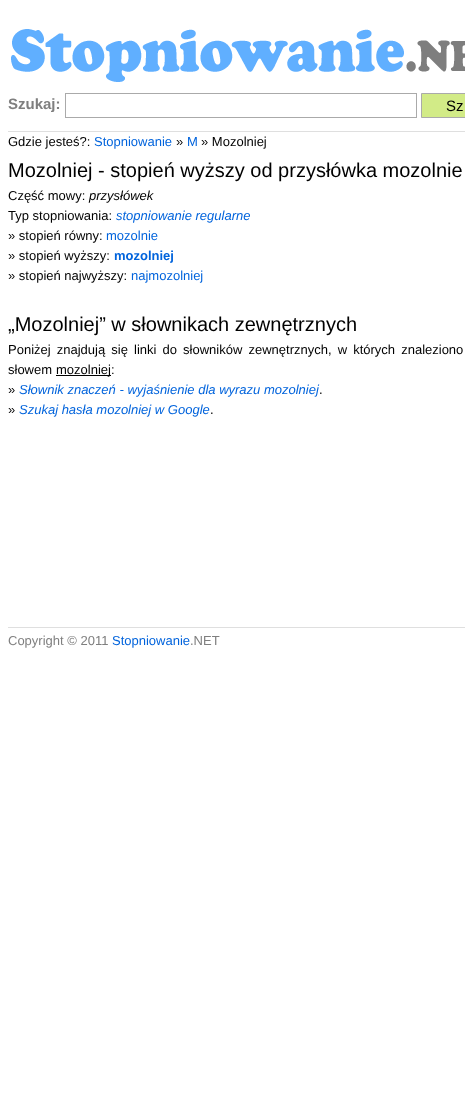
async function draw(canvas) {
  canvas.width = 465;
  canvas.height = 1111;
  const ctx = canvas.getContext('2d');
  ctx.miterLimit = 4;
  ctx.fontKerning = 'normal';
  function label(s, x, y, font, color) {
    ctx.font = font;
    ctx.fillStyle = color;
    ctx.fillText(s, x, y);
  }
  function rect(x, y, w, h, color) {
    ctx.fillStyle = color;
    ctx.fillRect(x, y, w, h);
  }
  async function image(src, x, y, w, h) {
    const img = new Image();
    img.src = src;
    await img.decode();
    ctx.drawImage(img, x, y, w, h);
  }

  rect(0, 0, 465, 1111, '#fff');
  rect(8, 131, 457, 1, '#dfdfdf');
  await image('assets/img1.png', 11, 29, 454, 53);
  label('Szukaj:', 8, 109, 'bold 15px Liberation Sans', '#7f7f7f');
  ctx.strokeStyle = '#aaa';
  ctx.strokeRect(65.5, 93.5, 351, 24);
  ctx.fillStyle = '#d2eb87';
  ctx.beginPath();
  ctx.rect(421.5, 93.5, 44, 24);
  ctx.fill();
  ctx.stroke();
  label('Sz', 446, 111, '15px Liberation Sans', '#000');
  label('Gdzie jesteś?:', 8, 146, '13px Liberation Sans', '#000');
  label('Stopniowanie', 94, 146, '13px Liberation Sans', '#0063dc');
  label('»', 176, 146, '13px Liberation Sans', '#000');
  label('M', 187, 146, '13px Liberation Sans', '#0063dc');
  label('» Mozolniej', 201, 146, '13px Liberation Sans', '#000');
  label('Mozolniej - stopień wyższy od przysłówka mozolnie', 8, 177, '20px Liberation Sans', '#000');
  label('Część mowy:', 8, 200, '13px Liberation Sans', '#000');
  label('przysłówek', 89, 200, 'italic 13px Liberation Sans', '#000');
  label('Typ stopniowania:', 8, 220, '13px Liberation Sans', '#000');
  label('stopniowanie regularne', 116, 220, 'italic 13px Liberation Sans', '#0063dc');
  label('» stopień równy:', 8, 240, '13px Liberation Sans', '#000');
  label('mozolnie', 106, 240, '13px Liberation Sans', '#0063dc');
  label('» stopień wyższy:', 8, 260, '13px Liberation Sans', '#000');
  label('mozolniej', 114, 260, 'bold 13px Liberation Sans', '#0063dc');
  label('» stopień najwyższy:', 8, 280, '13px Liberation Sans', '#000');
  label('najmozolniej', 131, 280, '13px Liberation Sans', '#0063dc');
  label('„Mozolniej” w słownikach zewnętrznych', 8, 331, '20px Liberation Sans', '#000');
  ctx.wordSpacing = '2.5px';
  label('Poniżej znajdują się linki do słowników zewnętrznych, w których znaleziono', 8, 354, '13px Liberation Sans', '#000');
  ctx.wordSpacing = '0px';
  label('słowem', 8, 374, '13px Liberation Sans', '#000');
  rect(56, 375, 55, 1, '#000');
  label('mozolniej:', 56, 374, '13px Liberation Sans', '#000');
  label('»', 8, 394, '13px Liberation Sans', '#000');
  label('Słownik znaczeń - wyjaśnienie dla wyrazu mozolniej', 19, 394, 'italic 13px Liberation Sans', '#0063dc');
  label('.', 319, 394, '13px Liberation Sans', '#000');
  label('»', 8, 414, '13px Liberation Sans', '#000');
  label('Szukaj hasła mozolniej w Google', 19, 414, 'italic 13px Liberation Sans', '#0063dc');
  label('.', 210, 414, '13px Liberation Sans', '#000');
  rect(8, 627, 457, 1, '#dfdfdf');
  label('Copyright © 2011', 8, 645, '13px Liberation Sans', '#7f7f7f');
  label('Stopniowanie', 112, 645, '13px Liberation Sans', '#0063dc');
  label('.NET', 190, 645, '13px Liberation Sans', '#7f7f7f');
}

draw(document.querySelector('canvas'));
